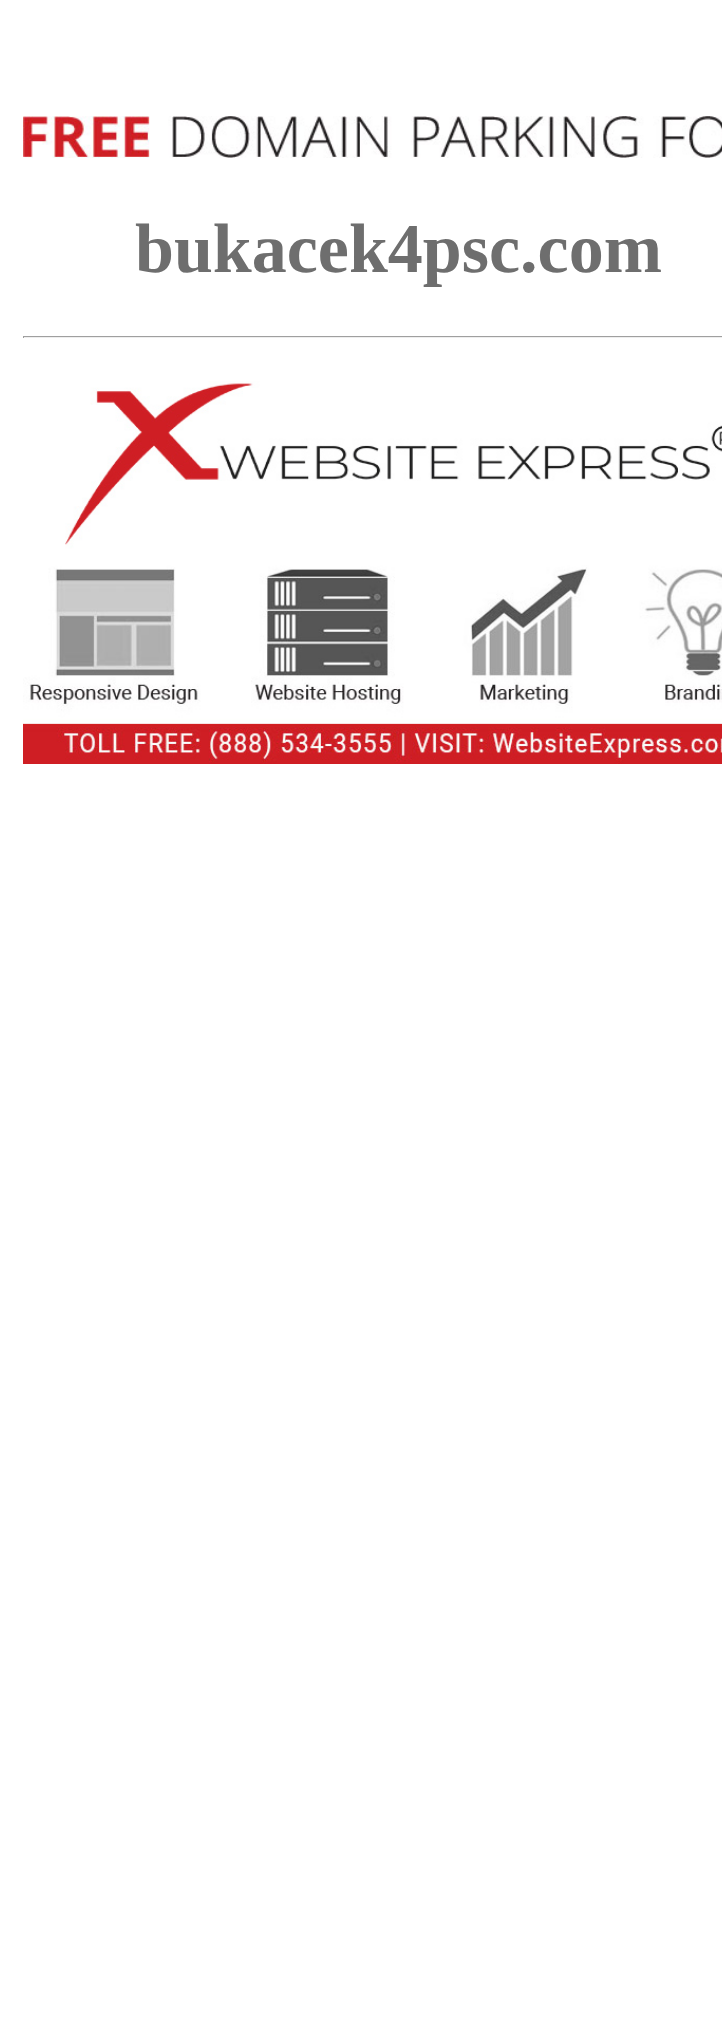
async function draw(canvas) {
  canvas.width = 722;
  canvas.height = 2019;
  const ctx = canvas.getContext('2d');
  ctx.miterLimit = 4;
  ctx.fontKerning = 'normal';
  function label(s, x, y, font, color) {
    ctx.font = font;
    ctx.fillStyle = color;
    ctx.fillText(s, x, y);
  }
  function rect(x, y, w, h, color) {
    ctx.fillStyle = color;
    ctx.fillRect(x, y, w, h);
  }
  async function image(src, x, y, w, h) {
    const img = new Image();
    img.src = src;
    await img.decode();
    ctx.drawImage(img, x, y, w, h);
  }

  rect(0, 0, 722, 2019, '#fff');
  await image('assets/img1.png', 23, 116, 699, 42);
  label('bukacek4psc.com', 135, 272, 'bold 70px Liberation Serif', '#6e6e6e');
  rect(23, 336, 699, 1, '#9f9f9f');
  rect(23, 337, 699, 1, '#eee');
  rect(23, 336, 1, 2, '#9f9f9f');
  await image('assets/img2.png', 23, 381, 699, 383);
}

draw(document.querySelector('canvas'));
